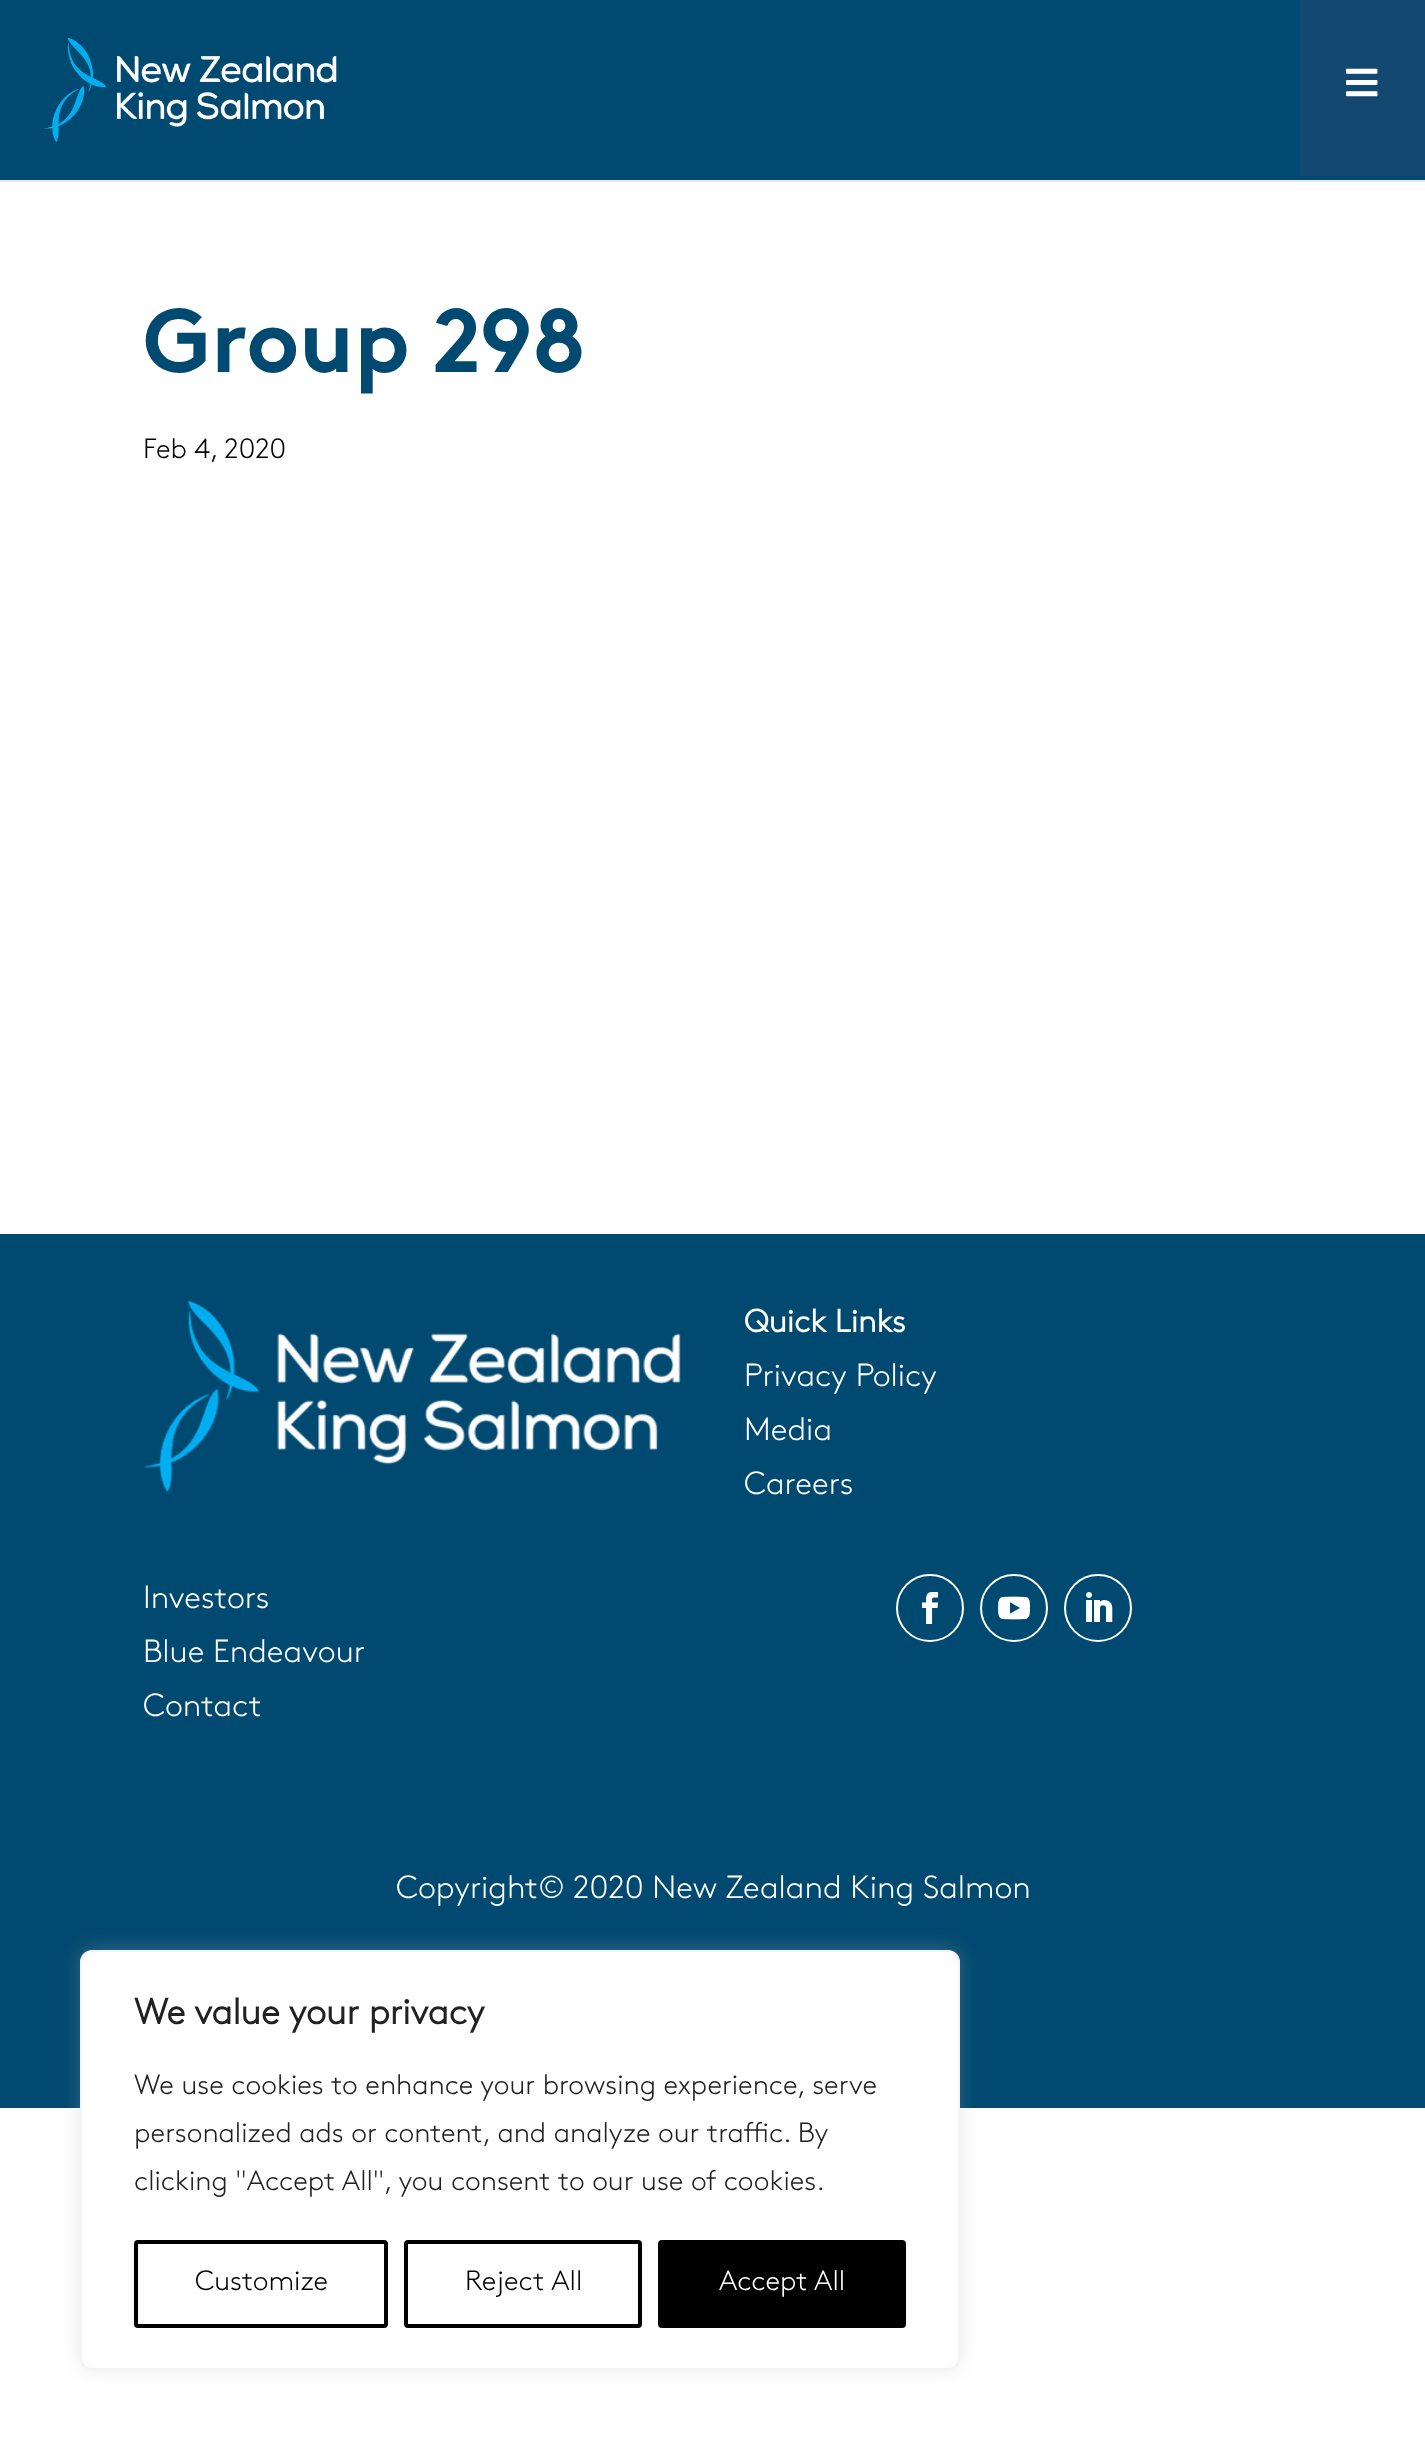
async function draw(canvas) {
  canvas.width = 1425;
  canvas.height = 2449;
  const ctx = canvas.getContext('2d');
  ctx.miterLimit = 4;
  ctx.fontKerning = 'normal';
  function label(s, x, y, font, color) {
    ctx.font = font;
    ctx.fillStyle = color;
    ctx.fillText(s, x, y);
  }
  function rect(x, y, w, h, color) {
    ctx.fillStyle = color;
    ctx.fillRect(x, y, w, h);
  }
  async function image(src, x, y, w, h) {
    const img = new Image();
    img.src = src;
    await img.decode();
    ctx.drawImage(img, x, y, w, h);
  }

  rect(0, 0, 1425, 2449, '#fff');
  rect(0, 180, 1425, 2, '#e6e6e6');
  rect(0, 0, 1425, 180, '#004970');
  await image('assets/img1.png', 43, 37, 294, 105);
  rect(1300, 0, 125, 176, '#134970');
  await image('assets/img2.png', 1346, 68, 32, 29);
  label('Group 298', 143, 372, 'bold 90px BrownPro', '#004970');
  label('Feb 4, 2020', 143, 458, '300 28px BrownPro', '#000');
  rect(0, 1234, 1425, 874, '#004970');
  await image('assets/img3.png', 144, 1300, 537, 192);
  label('Quick Links', 744, 1332, 'bold 32px "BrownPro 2"', '#fff');
  label('Privacy Policy', 744, 1386, '300 32px BrownPro', '#fff');
  label('Media', 744, 1440, '300 32px BrownPro', '#fff');
  label('Careers', 744, 1494, '300 32px BrownPro', '#fff');
  label('Investors', 143, 1608, '300 32px BrownPro', '#fff');
  label('Blue Endeavour', 143, 1662, '300 32px BrownPro', '#fff');
  label('Contact', 143, 1716, '300 32px BrownPro', '#fff');
  ctx.beginPath();
  ctx.arc(930, 1608, 33, 0, 2 * Math.PI);
  ctx.strokeStyle = '#fff';
  ctx.lineWidth = 2;
  ctx.stroke();
  await image('assets/img4.png', 922, 1592, 17, 32);
  ctx.beginPath();
  ctx.arc(1014, 1608, 33, 0, 2 * Math.PI);
  ctx.stroke();
  await image('assets/img5.png', 998, 1596, 32, 24);
  ctx.beginPath();
  ctx.arc(1098, 1608, 33, 0, 2 * Math.PI);
  ctx.stroke();
  await image('assets/img6.png', 1086, 1592, 27, 30);
  label('Copyright© 2020 New Zealand King Salmon', 396, 1898, '300 32px BrownPro', '#fff');
  ctx.fillStyle = '#acabab4d';
  ctx.filter = 'blur(10px)';
  ctx.beginPath();
  ctx.roundRect(80, 1948, 880, 420, 12);
  ctx.fill();
  ctx.filter = 'none';
  ctx.fillStyle = '#fff';
  ctx.beginPath();
  ctx.roundRect(81, 1951, 878, 418, 11);
  ctx.fill();
  ctx.strokeStyle = '#f4f4f4';
  ctx.stroke();
  label('We value your privacy', 134, 2024, 'bold 36px "BrownPro 2"', '#212121');
  label('We use cookies to enhance your browsing experience, serve', 134, 2094, '300 28px BrownPro', '#212121');
  label('personalized ads or content, and analyze our traffic. By', 134, 2142, '300 28px BrownPro', '#212121');
  label('clicking "Accept All", you consent to our use of cookies.', 134, 2190, '300 28px BrownPro', '#212121');
  ctx.beginPath();
  ctx.roundRect(136, 2242, 250, 84, 2);
  ctx.strokeStyle = '#000';
  ctx.lineWidth = 4;
  ctx.stroke();
  label('Customize', 195, 2290, '300 28px BrownPro', '#000');
  ctx.beginPath();
  ctx.roundRect(406, 2242, 234, 84, 2);
  ctx.stroke();
  label('Reject All', 465, 2290, '300 28px BrownPro', '#000');
  ctx.beginPath();
  ctx.roundRect(660, 2242, 244, 84, 2);
  ctx.fill();
  ctx.stroke();
  label('Accept All', 719, 2290, '300 28px BrownPro', '#fff');
}

draw(document.querySelector('canvas'));
